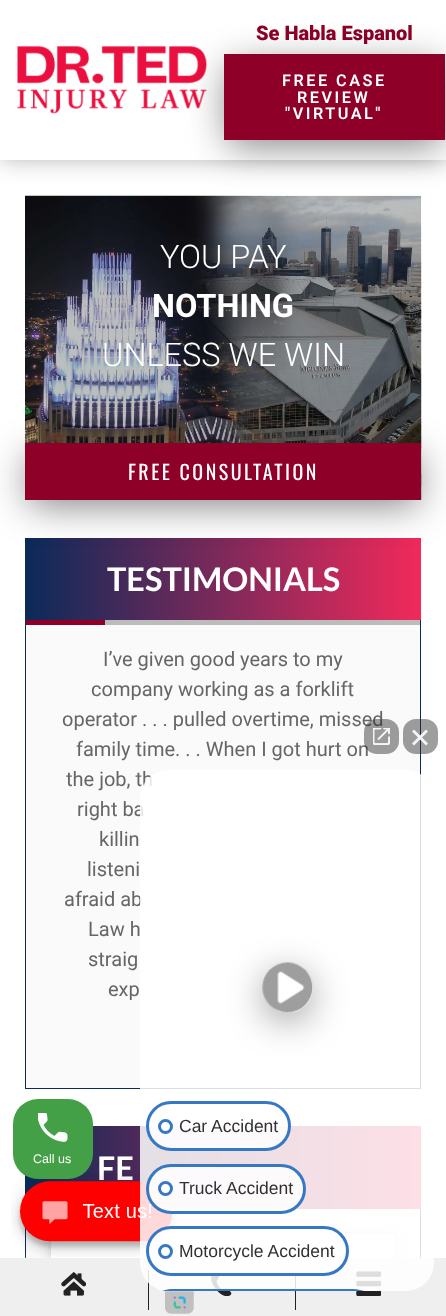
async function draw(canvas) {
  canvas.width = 446;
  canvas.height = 1316;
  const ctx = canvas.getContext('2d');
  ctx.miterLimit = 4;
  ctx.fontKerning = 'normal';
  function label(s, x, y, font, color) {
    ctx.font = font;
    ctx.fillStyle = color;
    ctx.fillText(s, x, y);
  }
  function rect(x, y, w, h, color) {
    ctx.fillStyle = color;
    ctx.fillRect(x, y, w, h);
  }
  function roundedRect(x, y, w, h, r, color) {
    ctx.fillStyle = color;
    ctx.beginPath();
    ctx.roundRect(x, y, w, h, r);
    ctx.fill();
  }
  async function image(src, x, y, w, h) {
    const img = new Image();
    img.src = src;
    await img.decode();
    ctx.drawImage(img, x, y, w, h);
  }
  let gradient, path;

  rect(0, 0, 446, 1316, '#fff');
  await image('assets/img5.png', 25, 195, 397, 305);
  ctx.fillStyle = '#00000040';
  ctx.filter = 'blur(12.5px)';
  ctx.beginPath();
  ctx.rect(0, 0, 446, 160);
  ctx.fill();
  ctx.filter = 'none';
  ctx.fillStyle = '#00000080';
  ctx.filter = 'blur(12.5px)';
  ctx.beginPath();
  ctx.rect(0, -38, 446, 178);
  ctx.fill();
  ctx.filter = 'none';
  rect(0, 0, 446, 160, '#fff');
  await image('assets/img1.png', 17, 45, 190, 69);
  label('Se Habla Espanol', 256, 40, '900 20px Roboto', '#8e0028');
  ctx.fillStyle = '#00000080';
  ctx.filter = 'blur(19px)';
  ctx.beginPath();
  ctx.rect(228, 66, 213, 79);
  ctx.fill();
  ctx.filter = 'none';
  rect(224, 54, 221, 86, '#8e0028');
  ctx.letterSpacing = '2.5px';
  label('FREE CASE', 282, 86, '600 16.25px Roboto', '#fff');
  label('REVIEW', 297, 103, '600 16.25px Roboto', '#fff');
  label('"VIRTUAL"', 285, 119, '600 16.25px Roboto', '#fff');
  rect(26, 1209, 394, 49, '#fafafa');
  rect(420, 1209, 1, 49, '#0a2a59');
  rect(25, 1228, 1, 30, '#0a2a59');
  ctx.fillStyle = '#00000026';
  ctx.filter = 'blur(6px)';
  ctx.beginPath();
  ctx.roundRect(51, 1234, 344, 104, 4);
  ctx.fill();
  ctx.filter = 'none';
  roundedRect(51, 1234, 344, 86, 4, '#fff');
  gradient = ctx.createLinearGradient(25, 1168, 421, 1168);
  gradient.addColorStop(0, '#0a2a59');
  gradient.addColorStop(1, '#f2295b');
  ctx.fillStyle = gradient;
  ctx.fillRect(25, 1126, 396, 83);
  ctx.letterSpacing = '0px';
  label('FE', 97, 1180, 'bold 32.5px Lato', '#fff');
  await image('assets/img10.png', 11, 1173, 170, 84);
  ctx.filter = 'blur(5.5px)';
  ctx.beginPath();
  ctx.rect(3, 1263, 441, 53);
  ctx.fill();
  ctx.filter = 'none';
  rect(0, 1258, 446, 58, '#efefef');
  await image('assets/img2.png', 61, 1272, 25, 24);
  rect(148, 1270, 1, 40, '#222');
  await image('assets/img3.png', 211, 1271, 21, 25);
  rect(295, 1270, 1, 40, '#222');
  await image('assets/img4.png', 356, 1271, 25, 25);
  label('YOU PAY', 160, 268, '300 32.5px Roboto', '#fff');
  label('NOTHING', 152, 317, 'bold 32.5px Roboto', '#fff');
  label('UNLESS WE WIN', 102, 366, '300 32.5px Roboto', '#fff');
  gradient = ctx.createLinearGradient(25, 579, 421, 579);
  gradient.addColorStop(0, '#0a2a59');
  gradient.addColorStop(1, '#f2295b');
  ctx.fillStyle = gradient;
  ctx.fillRect(25, 538, 396, 82);
  ctx.fillStyle = '#00000080';
  ctx.filter = 'blur(19px)';
  ctx.beginPath();
  ctx.rect(29, 455, 389, 50);
  ctx.fill();
  ctx.filter = 'none';
  rect(25, 443, 396, 57, '#8e0028');
  ctx.letterSpacing = '2.5px';
  label('FREE CONSULTATION', 128, 480, '20px Oswald', '#fff');
  ctx.letterSpacing = '0px';
  label('TESTIMONIALS', 107, 591, 'bold 32.5px Lato', '#fff');
  rect(26, 625, 394, 463, '#fafafa');
  rect(420, 620, 1, 469, '#0a2a59');
  rect(25, 1088, 396, 1, '#0a2a59');
  rect(25, 620, 1, 469, '#0a2a59');
  rect(105, 620, 315, 5, '#bcbcbc');
  rect(26, 620, 79, 5, '#8e0028');
  label('I’ve given good years to my', 103, 666, '20px Roboto', '#666');
  label('company working as a forklift', 91, 696, '20px Roboto', '#666');
  label('operator . . . pulled overtime, missed', 62, 726, '20px Roboto', '#666');
  label('family time. . . When I got hurt on', 76, 756, '20px Roboto', '#666');
  label('the job, th', 66, 786, '20px Roboto', '#666');
  label('right ba', 77, 816, '20px Roboto', '#666');
  label('killin', 99, 846, '20px Roboto', '#666');
  label('listeni', 87, 876, '20px Roboto', '#666');
  label('afraid ab', 64, 906, '20px Roboto', '#666');
  label('Law h', 88, 936, '20px Roboto', '#666');
  label('straig', 88, 966, '20px Roboto', '#666');
  label('exp', 108, 996, '20px Roboto', '#666');
  roundedRect(13, 1099, 80, 80, 25, '#43a047');
  await image('assets/img6.png', 38, 1113, 30, 29);
  label('Call us', 33, 1163, '12.5px Liberation Sans', '#fff');
  roundedRect(140, 770, 294, 521, 28, '#ffffffd9');
  roundedRect(364, 719, 35, 35, 13, '#27272773');
  await image('assets/img7.png', 373, 728, 17, 17);
  roundedRect(403, 719, 35, 35, 13, '#27272773');
  ctx.fillStyle = '#f5f5f5';
  path = new Path2D('M412 731.5L414 729.5L428 743.5L426 745.5Z');
  ctx.fill(path);
  path = new Path2D('M426 729.5L428 731.5L414 745.5L412 743.5Z');
  ctx.fill(path);
  ctx.save();
  path = new Path2D('M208 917H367V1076H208ZM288 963C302 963 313 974 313 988C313 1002 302 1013 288 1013C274 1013 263 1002 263 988C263 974 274 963 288 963Z');
  ctx.clip(path, 'evenodd');
  ctx.fillStyle = '#00000080';
  ctx.filter = 'blur(19px)';
  ctx.beginPath();
  ctx.roundRect(266, 975, 43, 43, 21.5);
  ctx.fill();
  ctx.filter = 'none';
  ctx.restore();
  await image('assets/img8.png', 262, 962, 51, 51);
  ctx.fillStyle = '#ffffffd9';
  ctx.beginPath();
  ctx.roundRect(147.5, 1102.5, 142, 47, 23.5);
  ctx.fill();
  ctx.strokeStyle = '#3778c4';
  ctx.lineWidth = 3;
  ctx.stroke();
  ctx.fillStyle = '#fff';
  ctx.beginPath();
  ctx.arc(165.5, 1126.5, 6, 0, 2 * Math.PI);
  ctx.fill();
  ctx.stroke();
  label('Car Accident', 179, 1132, '17.5px Liberation Sans', '#313131');
  ctx.fillStyle = '#ffffffd9';
  ctx.beginPath();
  ctx.roundRect(147.5, 1165.5, 157, 47, 23.5);
  ctx.fill();
  ctx.stroke();
  ctx.fillStyle = '#fff';
  ctx.beginPath();
  ctx.arc(165.5, 1188.5, 6, 0, 2 * Math.PI);
  ctx.fill();
  ctx.stroke();
  label('Truck Accident', 179, 1194, '17.5px Liberation Sans', '#313131');
  ctx.fillStyle = '#ffffffd9';
  ctx.beginPath();
  ctx.roundRect(147.5, 1227.5, 200, 47, 23.5);
  ctx.fill();
  ctx.stroke();
  ctx.beginPath();
  ctx.arc(165.5, 1251.5, 6, 0, 2 * Math.PI);
  ctx.stroke();
  label('Motorcycle Accident', 179, 1257, '17.5px Liberation Sans', '#313131');
  ctx.save();
  ctx.beginPath();
  ctx.roundRect(140, 828, 294, 463, [0, 0, 25, 25]);
  ctx.clip();
  ctx.fillStyle = '#ffffffd9';
  ctx.beginPath();
  ctx.roundRect(146, 1289, 233, 2, [25, 25, 0, 0]);
  ctx.fill();
  ctx.restore();
  ctx.fillStyle = '#3778c4';
  path = new Path2D('M171 1289H354C357 1289 361 1290 364 1291H162C165 1290 168 1289 171 1289Z');
  ctx.fill(path);
  await image('assets/img9.png', 165, 1291, 29, 23);
}

draw(document.querySelector('canvas'));
